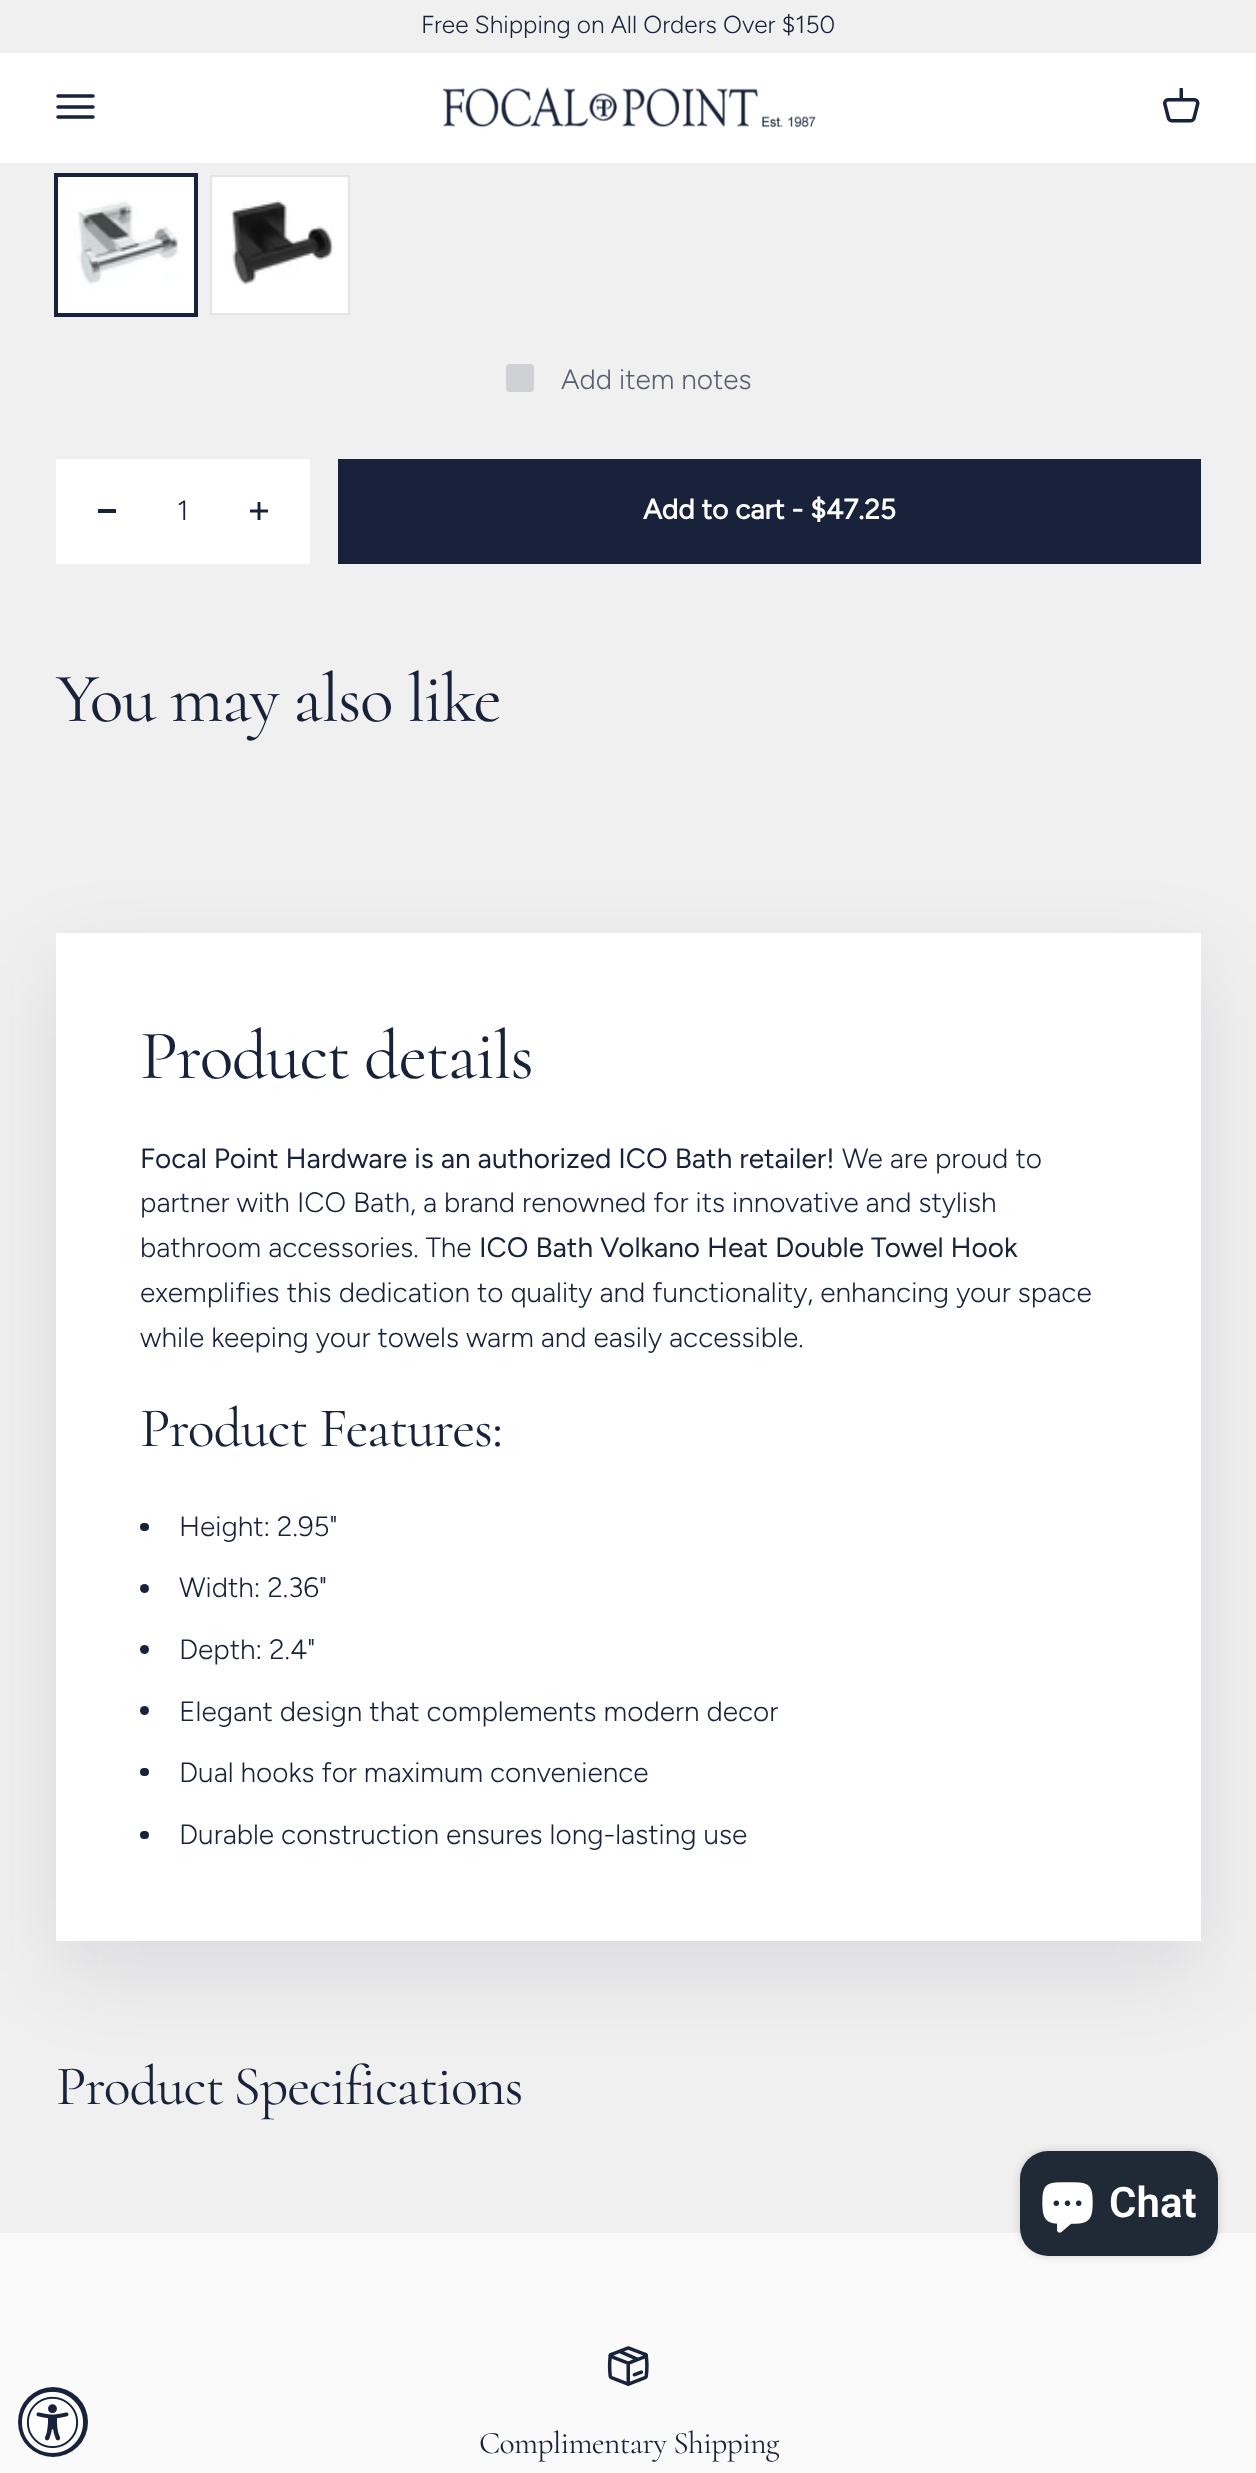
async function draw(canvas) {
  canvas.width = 1256;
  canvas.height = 2473;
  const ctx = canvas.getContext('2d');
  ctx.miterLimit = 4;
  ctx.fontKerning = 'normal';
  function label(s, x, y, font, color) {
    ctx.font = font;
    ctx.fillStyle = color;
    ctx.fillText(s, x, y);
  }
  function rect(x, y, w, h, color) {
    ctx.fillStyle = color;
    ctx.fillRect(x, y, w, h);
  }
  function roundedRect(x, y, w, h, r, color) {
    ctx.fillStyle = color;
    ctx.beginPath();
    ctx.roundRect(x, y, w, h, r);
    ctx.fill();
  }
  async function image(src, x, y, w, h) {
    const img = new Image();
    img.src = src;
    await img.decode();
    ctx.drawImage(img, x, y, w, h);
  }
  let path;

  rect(0, 0, 1256, 2473, '#f0f0f0');
  label('Free Shipping on All Orders Over $150', 421, 33, '300 24.5px Figtree', '#19223b');
  rect(0, 53, 1256, 110, '#fff');
  path = new Path2D('M58 96H93M58 107H93M58 117H93');
  ctx.strokeStyle = '#19223b';
  ctx.lineWidth = 3.5;
  ctx.lineCap = 'round';
  ctx.stroke(path);
  await image('assets/img1.png', 442, 87, 374, 41);
  await image('assets/img2.png', 1163, 88, 37, 35);
  rect(58, 177, 136, 136, '#fff');
  await image('assets/img3.png', 73, 200, 106, 90);
  ctx.lineWidth = 4;
  ctx.strokeRect(56, 175, 140, 140);
  ctx.beginPath();
  ctx.rect(211, 176, 138, 138);
  ctx.fill();
  ctx.strokeStyle = '#e3e4e7';
  ctx.lineWidth = 2;
  ctx.stroke();
  await image('assets/img4.png', 230, 200, 104, 85);
  roundedRect(506, 364, 28, 28, 4, '#d0d1d5');
  label('Add item notes', 561, 389, '300 28px Figtree', '#5a6071');
  rect(56, 459, 254, 105, '#fff');
  rect(98, 509, 18, 4, '#19223b');
  label('1', 177, 520, '300 28px Figtree', '#19223b');
  path = new Path2D('M259 502V520M250 511H268');
  ctx.strokeStyle = '#19223b';
  ctx.lineWidth = 2.9;
  ctx.lineCap = 'butt';
  ctx.stroke(path);
  rect(338, 459, 863, 105, '#19223b');
  label('Add to cart - $47.25', 643, 519, 'bold 28px Figtree', '#fff');
  ctx.letterSpacing = '-1.4px';
  label('You may also like', 56, 721, '70px Cormorant', '#19223b');
  ctx.fillStyle = '#19223b1a';
  ctx.filter = 'blur(44px)';
  ctx.beginPath();
  ctx.rect(56, 964, 1145, 1008);
  ctx.fill();
  ctx.filter = 'none';
  rect(56, 933, 1145, 1008, '#fff');
  label('Product details', 140, 1078, '70px Cormorant', '#19223b');
  ctx.letterSpacing = '0px';
  label('Focal Point Hardware is an authorized ICO Bath retailer!', 140, 1168, '28px Figtree', '#19223b');
  label('We are proud to', 842, 1168, '300 28px Figtree', '#19223b');
  label('partner with ICO Bath, a brand renowned for its innovative and stylish', 140, 1212, '300 28px Figtree', '#19223b');
  label('bathroom accessories. The', 140, 1257, '300 28px Figtree', '#19223b');
  label('ICO Bath Volkano Heat Double Towel Hook', 479, 1257, '28px Figtree', '#19223b');
  label('exemplifies this dedication to quality and functionality, enhancing your space', 140, 1302, '300 28px Figtree', '#19223b');
  label('while keeping your towels warm and easily accessible.', 140, 1347, '300 28px Figtree', '#19223b');
  ctx.letterSpacing = '-1.1px';
  label('Product Features:', 140, 1446, '56px Cormorant', '#19223b');
  roundedRect(140, 1523, 9, 8, 4, '#19223b');
  ctx.letterSpacing = '0px';
  label('Height: 2.95"', 179, 1536, '300 28px Figtree', '#19223b');
  ctx.beginPath();
  ctx.arc(144.5, 1588.5, 4.5, 0, 2 * Math.PI);
  ctx.fill();
  label('Width: 2.36"', 179, 1597, '300 28px Figtree', '#19223b');
  ctx.beginPath();
  ctx.arc(144.5, 1649.5, 4.5, 0, 2 * Math.PI);
  ctx.fill();
  label('Depth: 2.4"', 179, 1659, '300 28px Figtree', '#19223b');
  ctx.beginPath();
  ctx.arc(144.5, 1710.5, 4.5, 0, 2 * Math.PI);
  ctx.fill();
  label('Elegant design that complements modern decor', 179, 1721, '300 28px Figtree', '#19223b');
  roundedRect(140, 1768, 9, 8, 4, '#19223b');
  label('Dual hooks for maximum convenience', 179, 1782, '300 28px Figtree', '#19223b');
  roundedRect(140, 1831, 9, 8, 4, '#19223b');
  label('Durable construction ensures long-lasting use', 179, 1844, '300 28px Figtree', '#19223b');
  ctx.letterSpacing = '-1.1px';
  ctx.wordSpacing = '-2px';
  label('Product Specifications', 56, 2104, '56px Cormorant', '#19223b');
  rect(0, 2233, 1256, 240, '#fafafa');
  await image('assets/img5.png', 607, 2346, 42, 40);
  ctx.letterSpacing = '-0.6px';
  ctx.wordSpacing = '0px';
  label('Complimentary Shipping', 479, 2453, '31.5px Cormorant', '#19223b');
  ctx.fillStyle = '#00000026';
  ctx.filter = 'blur(4.5px)';
  ctx.beginPath();
  ctx.roundRect(1020, 2151, 198, 105, 28);
  ctx.fill();
  ctx.filter = 'none';
  roundedRect(1020, 2151, 198, 105, 28, '#202a36');
  await image('assets/img6.png', 1042, 2182, 51, 51);
  ctx.letterSpacing = '0px';
  label('Chat', 1109, 2217, '600 42px Roboto', '#fff');
  ctx.fillStyle = '#19223b';
  ctx.beginPath();
  ctx.arc(53, 2422, 35, 0, 2 * Math.PI);
  ctx.fill();
  await image('assets/img7.png', 22, 2391, 61, 62);
}

draw(document.querySelector('canvas'));
